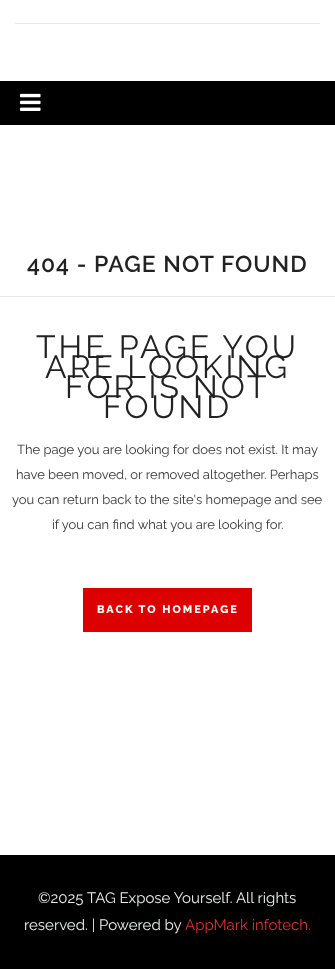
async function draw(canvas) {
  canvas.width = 335;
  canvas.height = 969;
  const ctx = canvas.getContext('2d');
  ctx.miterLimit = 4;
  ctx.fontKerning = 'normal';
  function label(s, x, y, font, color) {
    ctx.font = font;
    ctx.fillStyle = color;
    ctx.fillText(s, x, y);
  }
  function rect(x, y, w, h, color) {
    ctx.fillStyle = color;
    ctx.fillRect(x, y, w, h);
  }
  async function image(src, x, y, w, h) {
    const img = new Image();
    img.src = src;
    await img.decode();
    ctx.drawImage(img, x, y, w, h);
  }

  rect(0, 0, 335, 969, '#fff');
  rect(15, 23, 305, 1, '#eaeaea');
  rect(0, 81, 335, 44, '#000');
  await image('assets/img1.png', 20, 93, 21, 18);
  ctx.letterSpacing = '1px';
  label('404 - PAGE NOT FOUND', 27, 272, '600 23px Raleway', '#222');
  rect(0, 296, 335, 1, '#eaeaea');
  ctx.letterSpacing = '3px';
  label('THE PAGE YOU', 36, 358, '32px Raleway', '#222');
  label('ARE LOOKING', 45, 378, '32px Raleway', '#222');
  label('FOR IS NOT', 65, 398, '32px Raleway', '#222');
  label('FOUND', 103, 418, '32px Raleway', '#222');
  ctx.letterSpacing = '0px';
  label('The page you are looking for does not exist. It may', 17, 454, '13px Raleway', '#353535');
  label('have been moved, or removed altogether. Perhaps', 16, 479, '13px Raleway', '#353535');
  label('you can return back to the site\'s homepage and see', 12, 504, '13px Raleway', '#353535');
  label('if you can find what you are looking for.', 52, 529, '13px Raleway', '#353535');
  rect(83, 588, 169, 44, '#d00');
  ctx.letterSpacing = '2px';
  label('BACK TO HOMEPAGE', 97, 613, '800 11px Raleway', '#fff');
  rect(0, 855, 335, 114, '#000');
  ctx.letterSpacing = '0px';
  label('©2025', 38, 903, '15px Raleway', '#ecf0f1');
  label('TAG Expose Yourself. All rights', 87, 903, '15px Raleway', '#ecf0f1');
  label('reserved. |', 24, 930, '15px Raleway', '#ecf0f1');
  label('Powered by', 99, 930, '15px Raleway', '#ecf0f1');
  label('AppMark infotech.', 185, 930, '15px Raleway', '#d33');
}

draw(document.querySelector('canvas'));
